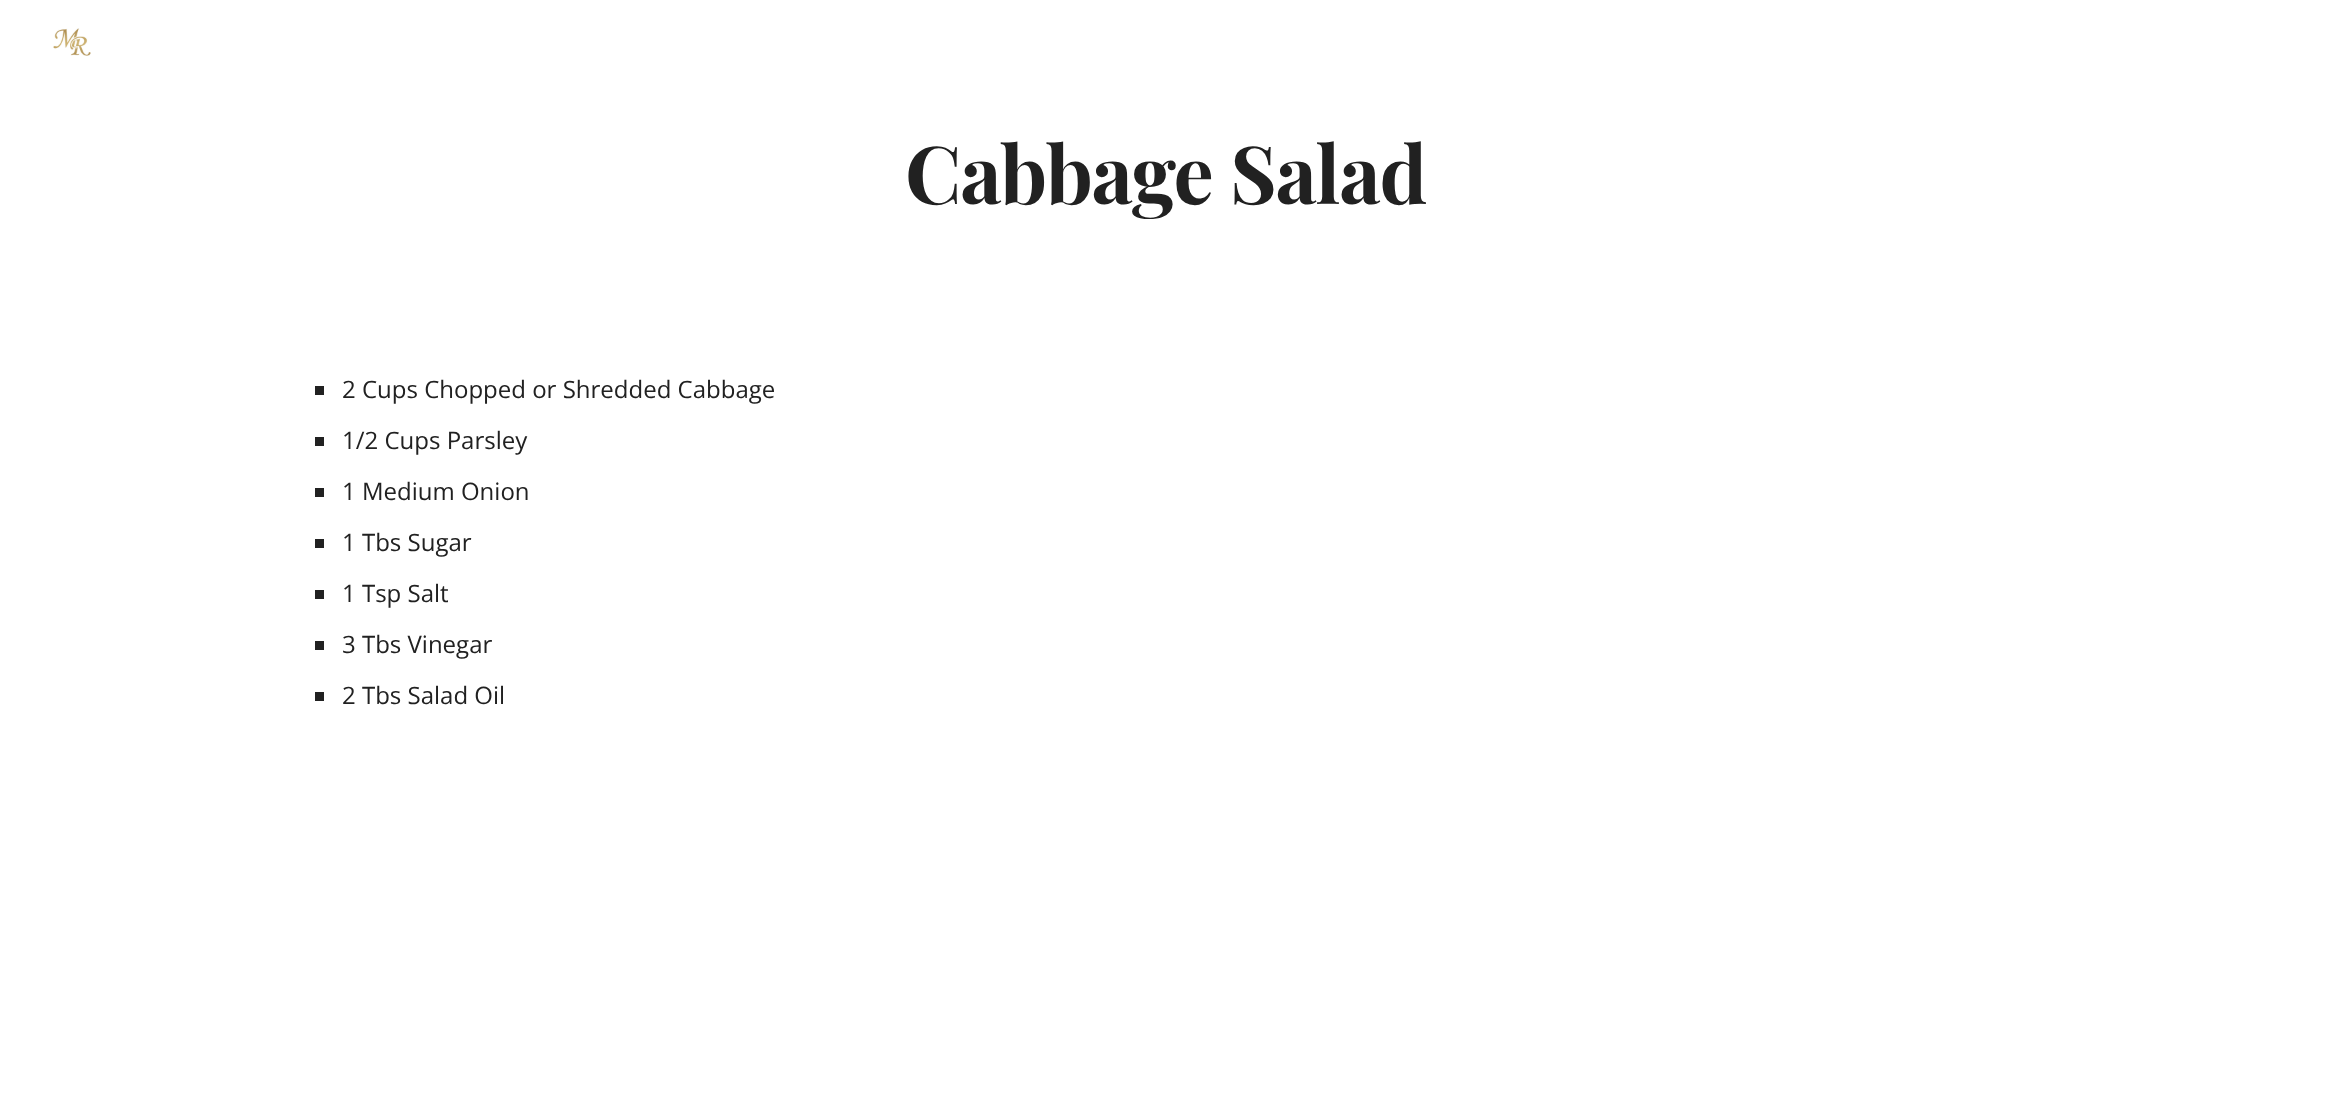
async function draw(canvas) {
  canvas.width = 2330;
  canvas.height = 1095;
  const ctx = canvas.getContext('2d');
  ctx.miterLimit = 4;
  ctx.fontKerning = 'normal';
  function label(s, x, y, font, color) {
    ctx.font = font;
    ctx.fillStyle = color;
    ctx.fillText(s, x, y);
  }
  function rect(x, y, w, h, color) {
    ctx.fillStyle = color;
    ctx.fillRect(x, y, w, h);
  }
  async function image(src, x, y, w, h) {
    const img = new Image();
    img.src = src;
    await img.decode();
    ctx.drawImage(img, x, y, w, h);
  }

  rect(0, 0, 2330, 1095, '#fff');
  await image('assets/img1.png', 53, 28, 38, 28);
  ctx.letterSpacing = '-1.25px';
  label('Cabbage Salad', 905, 204, 'bold 80px Playfair Display', '#212121');
  rect(315, 386, 9, 9, '#212121');
  ctx.letterSpacing = '0px';
  label('2 Cups Chopped or Shredded Cabbage', 342, 398, '24px Open Sans', '#212121');
  rect(315, 437, 9, 9, '#212121');
  label('1/2 Cups Parsley', 342, 449, '24px Open Sans', '#212121');
  rect(315, 488, 9, 9, '#212121');
  label('1 Medium Onion', 342, 500, '24px Open Sans', '#212121');
  rect(315, 539, 9, 9, '#212121');
  label('1 Tbs Sugar', 342, 551, '24px Open Sans', '#212121');
  rect(315, 590, 9, 9, '#212121');
  label('1 Tsp Salt', 342, 602, '24px Open Sans', '#212121');
  rect(315, 641, 9, 9, '#212121');
  label('3 Tbs Vinegar', 342, 653, '24px Open Sans', '#212121');
  rect(315, 692, 9, 9, '#212121');
  label('2 Tbs Salad Oil', 342, 704, '24px Open Sans', '#212121');
}

draw(document.querySelector('canvas'));
